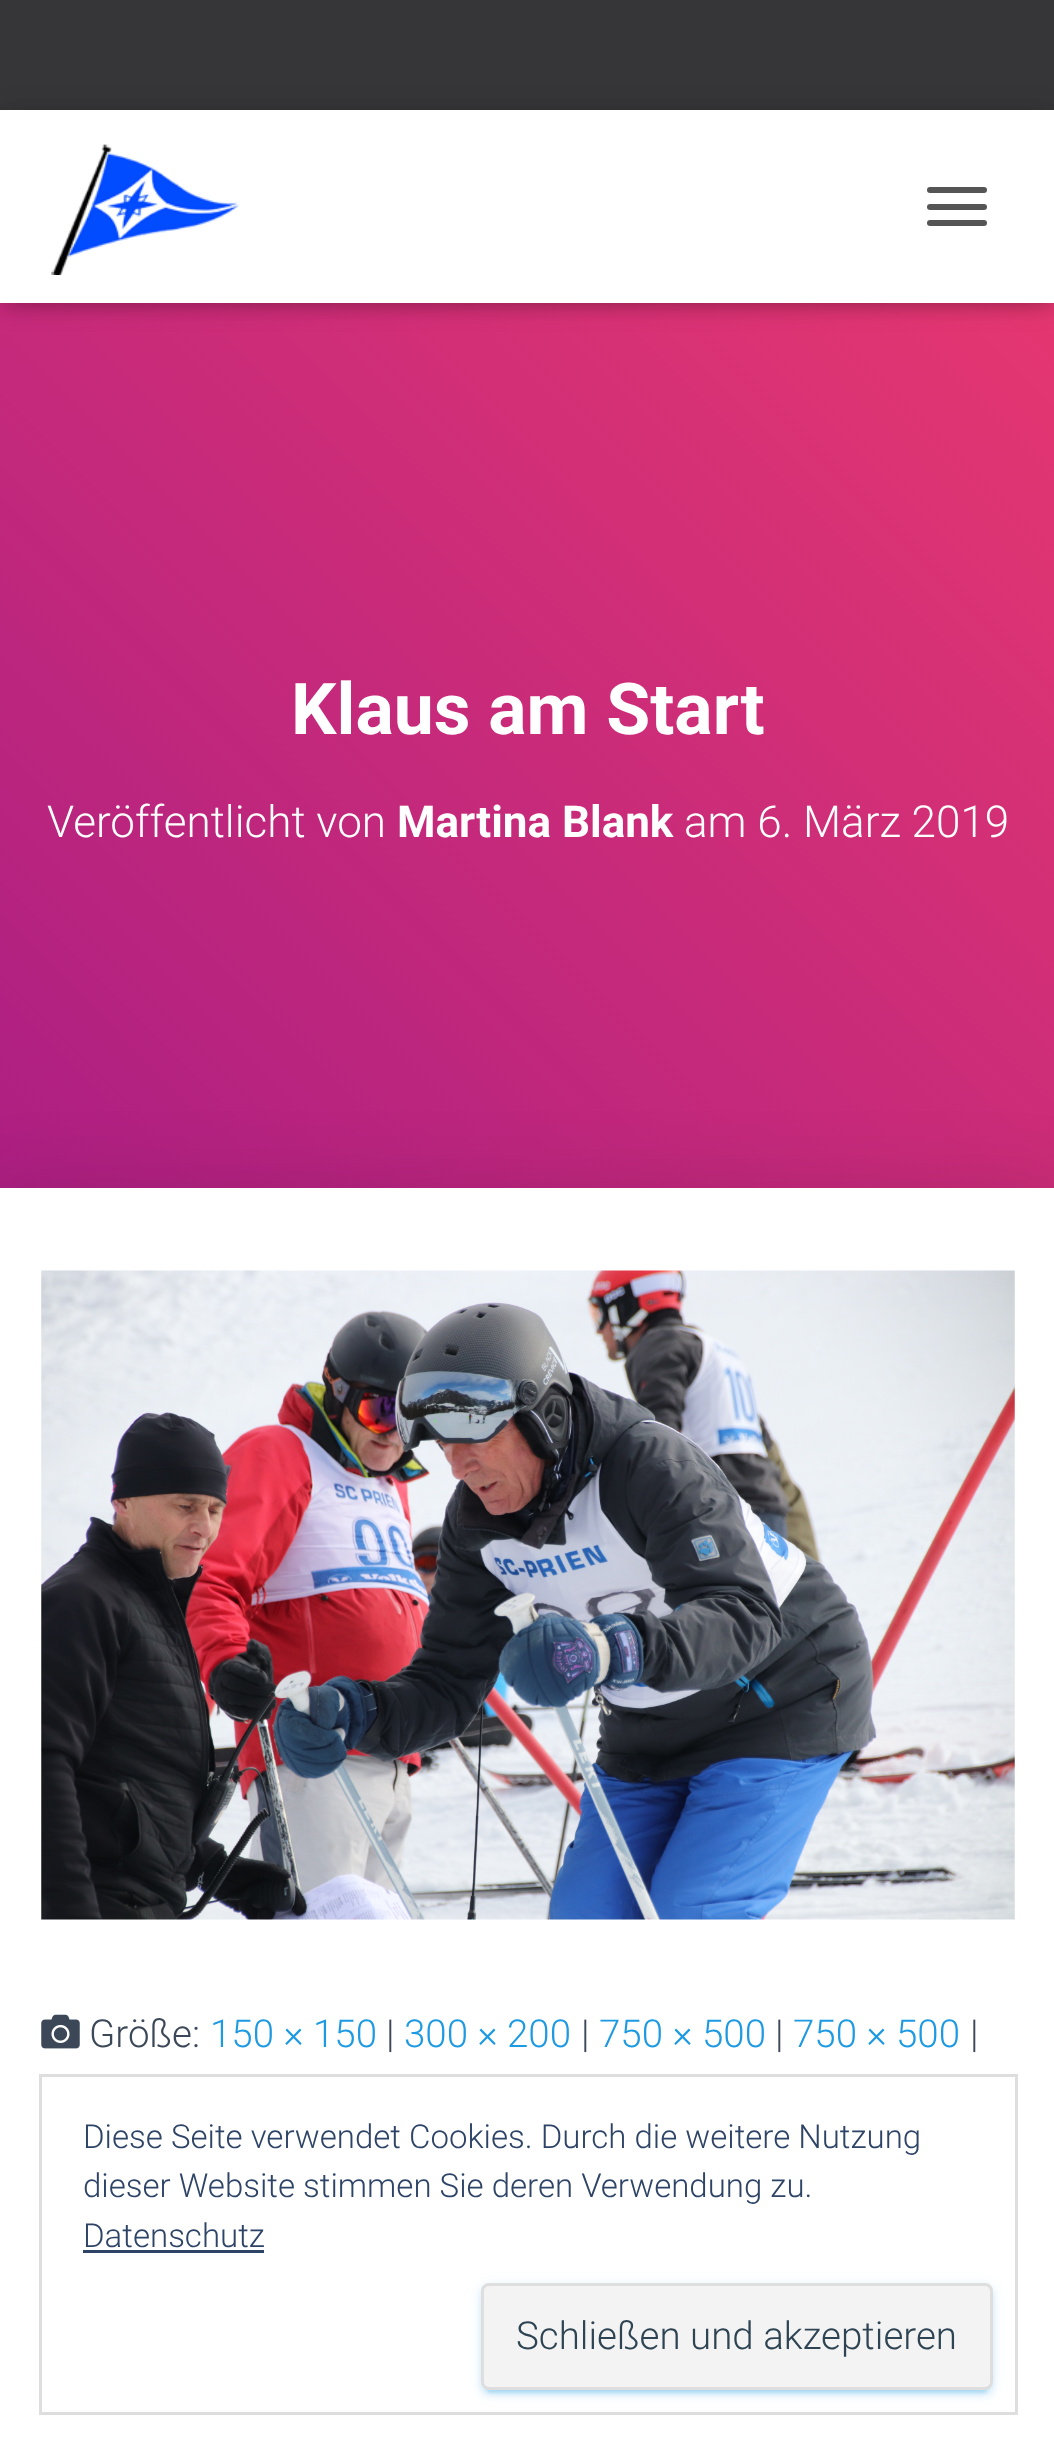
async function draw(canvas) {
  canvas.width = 1054;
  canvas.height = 2452;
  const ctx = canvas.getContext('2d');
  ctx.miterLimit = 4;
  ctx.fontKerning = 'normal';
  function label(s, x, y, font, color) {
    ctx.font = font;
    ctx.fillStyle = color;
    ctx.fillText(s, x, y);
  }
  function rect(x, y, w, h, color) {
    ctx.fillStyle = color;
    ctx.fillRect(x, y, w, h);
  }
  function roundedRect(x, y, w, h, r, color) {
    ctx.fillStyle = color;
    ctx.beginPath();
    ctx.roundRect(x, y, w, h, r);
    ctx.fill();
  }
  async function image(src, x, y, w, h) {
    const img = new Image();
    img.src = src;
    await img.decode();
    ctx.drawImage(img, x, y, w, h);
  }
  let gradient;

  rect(0, 0, 1054, 2452, '#363537');
  gradient = ctx.createLinearGradient(-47, 1306, 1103, 157);
  gradient.addColorStop(0, '#a81d84');
  gradient.addColorStop(1, '#ea396f');
  ctx.fillStyle = gradient;
  ctx.fillRect(0, 303, 1054, 885);
  ctx.fillStyle = '#0000001a';
  ctx.filter = 'blur(7px)';
  ctx.beginPath();
  ctx.rect(6, 127, 1045, 181);
  ctx.fill();
  ctx.filter = 'none';
  ctx.fillStyle = '#0000001f';
  ctx.filter = 'blur(14px)';
  ctx.beginPath();
  ctx.rect(0, 113, 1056, 192);
  ctx.fill();
  ctx.filter = 'none';
  ctx.fillStyle = '#0000006b';
  ctx.filter = 'blur(14px)';
  ctx.beginPath();
  ctx.rect(17, 129, 1023, 160);
  ctx.fill();
  ctx.filter = 'none';
  rect(0, 110, 1054, 193, '#fff');
  await image('assets/img1.png', 51, 144, 188, 131);
  roundedRect(927, 187, 60, 6, 3, '#555');
  roundedRect(927, 204, 60, 6, 3, '#555');
  roundedRect(927, 220, 60, 6, 3, '#555');
  label('Klaus am Start', 291, 734, 'bold 71.5px Roboto', '#fff');
  label('Veröffentlicht von', 47, 837, '300 44px Roboto', '#fff');
  label('Martina Blank', 397, 837, 'bold 44px Roboto', '#fff');
  label('am 6. März 2019', 684, 837, '300 44px Roboto', '#fff');
  ctx.fillStyle = '#0000001f';
  ctx.filter = 'blur(41px)';
  ctx.beginPath();
  ctx.rect(-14, 1191, 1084, 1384);
  ctx.fill();
  ctx.filter = 'none';
  rect(0, 1188, 1054, 1264, '#fff');
  await image('assets/img2.png', 41, 1270, 974, 650);
  await image('assets/img3.png', 41, 2014, 39, 35);
  label('Größe:', 89, 2047, '300 38.5px Roboto', '#3c4858');
  label('150 × 150', 210, 2047, '300 38.5px Roboto', '#1d9ae2');
  label('|', 386, 2047, '300 38.5px Roboto', '#3c4858');
  label('300 × 200', 404, 2047, '300 38.5px Roboto', '#1d9ae2');
  label('|', 581, 2047, '300 38.5px Roboto', '#3c4858');
  label('750 × 500', 599, 2047, '300 38.5px Roboto', '#1d9ae2');
  label('|', 775, 2047, '300 38.5px Roboto', '#3c4858');
  label('750 × 500', 793, 2047, '300 38.5px Roboto', '#1d9ae2');
  label('|', 970, 2047, '300 38.5px Roboto', '#3c4858');
  ctx.strokeStyle = '#dedede';
  ctx.lineWidth = 3;
  ctx.strokeRect(40.5, 2075.5, 976, 338);
  label('Diese Seite verwendet Cookies. Durch die weitere Nutzung', 83, 2148, '300 33px Roboto', '#2e4467');
  label('dieser Website stimmen Sie deren Verwendung zu.', 83, 2197, '300 33px Roboto', '#2e4467');
  label('Datenschutz', 83, 2247, '300 33px Roboto', '#2e4467');
  rect(83, 2250, 181, 3, '#2e4467');
  ctx.fillStyle = '#1d9ae21f';
  ctx.filter = 'blur(7px)';
  ctx.beginPath();
  ctx.roundRect(481, 2285, 512, 108, 8);
  ctx.fill();
  ctx.filter = 'none';
  ctx.fillStyle = '#1d9ae233';
  ctx.filter = 'blur(1.5px)';
  ctx.beginPath();
  ctx.roundRect(487, 2296, 500, 97, 3);
  ctx.fill();
  ctx.filter = 'none';
  ctx.fillStyle = '#1d9ae224';
  ctx.filter = 'blur(3px)';
  ctx.beginPath();
  ctx.roundRect(481, 2288, 512, 107, 8);
  ctx.fill();
  ctx.filter = 'none';
  ctx.fillStyle = '#f3f3f3';
  ctx.beginPath();
  ctx.roundRect(482.5, 2284.5, 509, 104, 6.5);
  ctx.fill();
  ctx.stroke();
  label('Schließen und akzeptieren', 516, 2349, '300 38.5px Roboto', '#2e4453');
}

draw(document.querySelector('canvas'));
